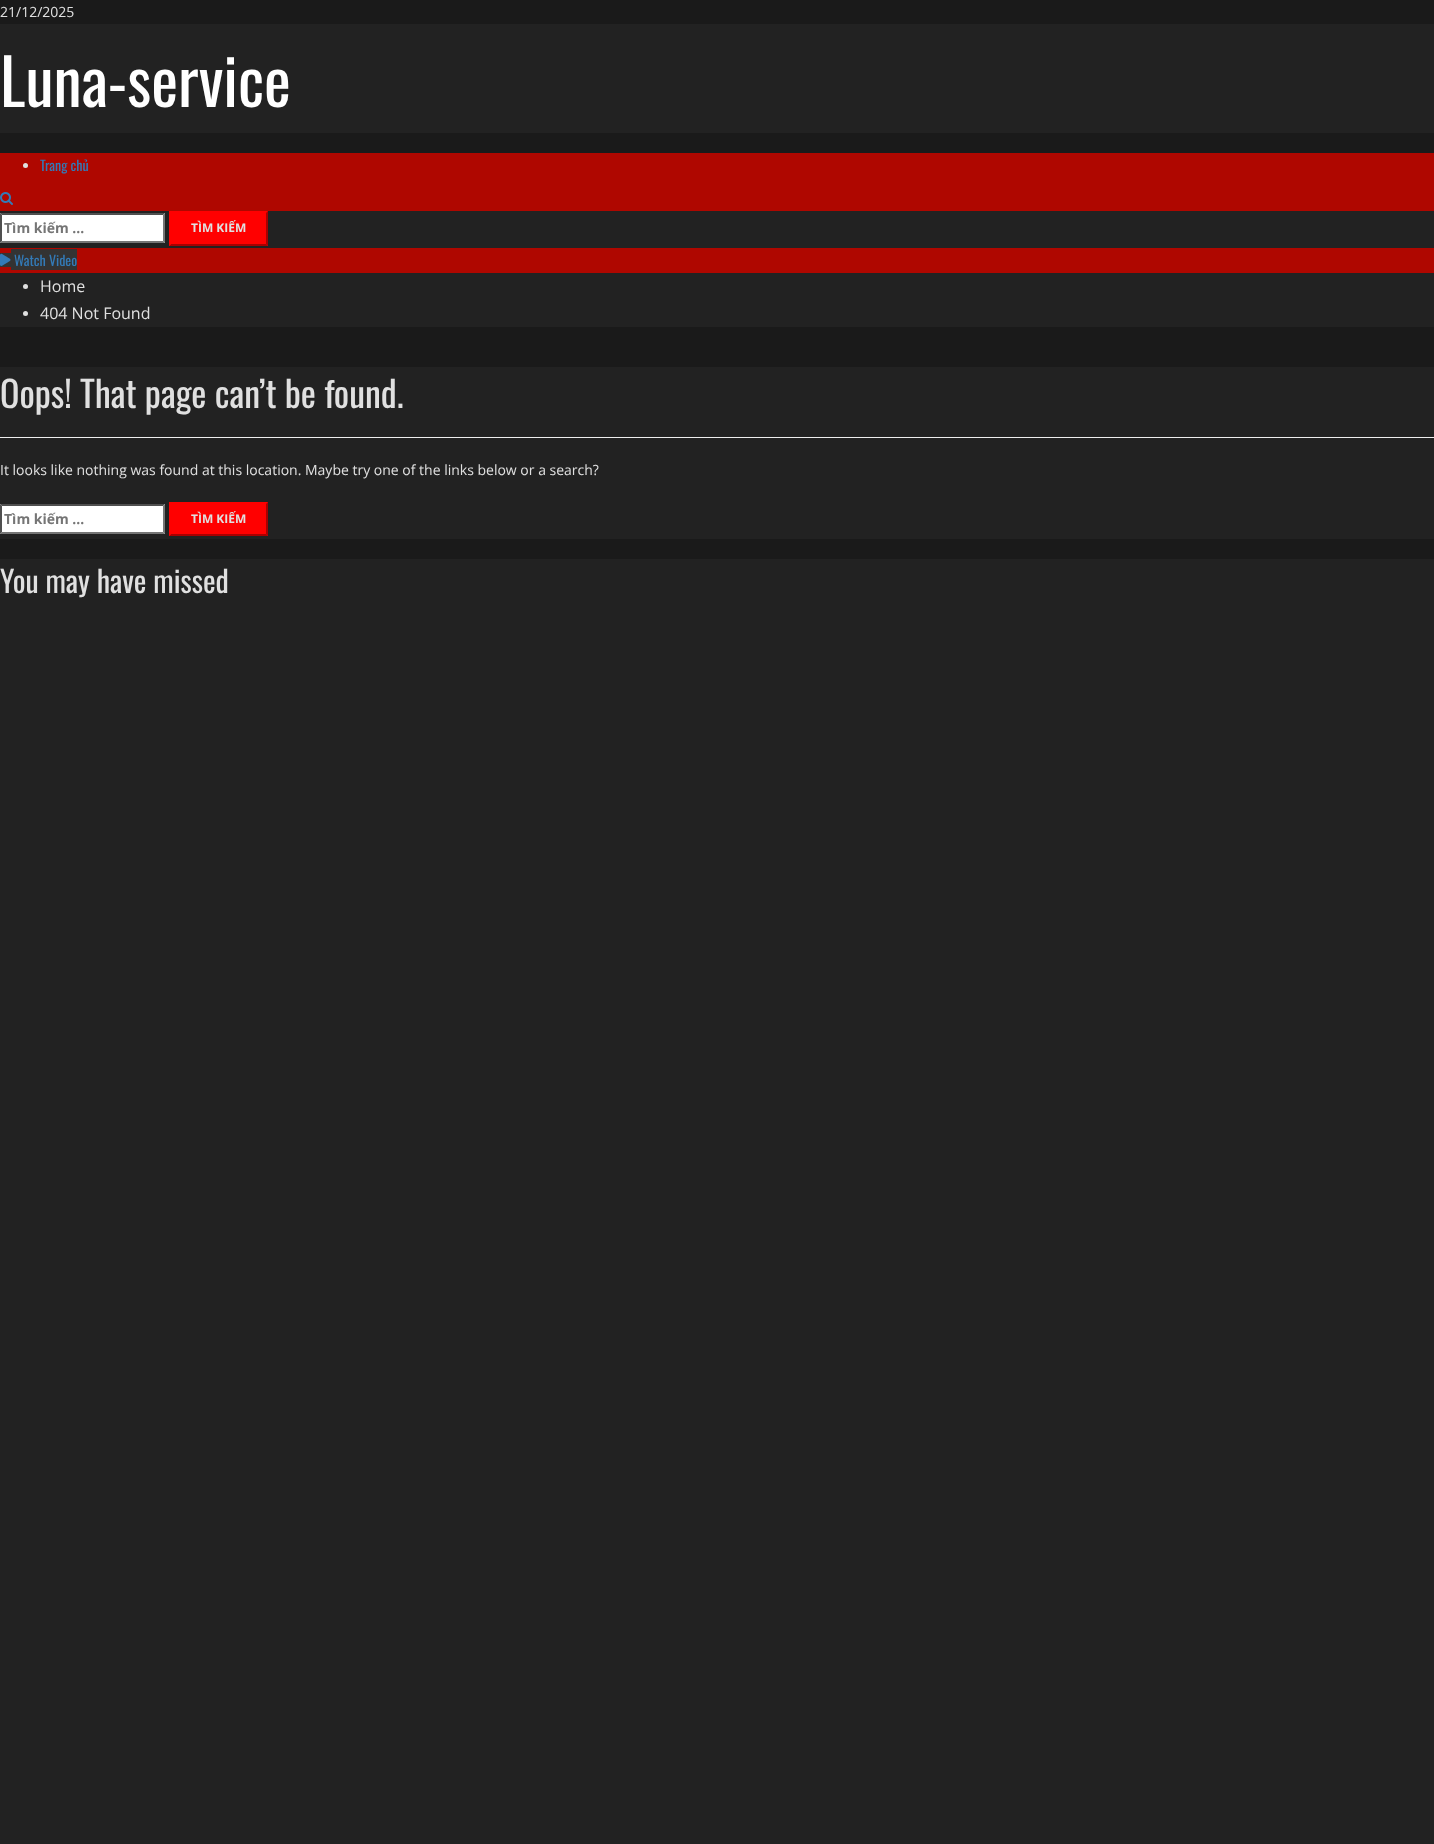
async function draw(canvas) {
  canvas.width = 1434;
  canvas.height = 1844;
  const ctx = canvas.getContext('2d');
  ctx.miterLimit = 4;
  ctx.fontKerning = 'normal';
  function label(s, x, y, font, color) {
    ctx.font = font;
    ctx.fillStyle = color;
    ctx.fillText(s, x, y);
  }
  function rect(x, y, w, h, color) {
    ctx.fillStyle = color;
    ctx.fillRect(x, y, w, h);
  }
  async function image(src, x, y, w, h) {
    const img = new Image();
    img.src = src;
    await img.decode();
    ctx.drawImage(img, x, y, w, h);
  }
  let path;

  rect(0, 0, 1434, 1844, '#1a1a1a');
  label('21/12/2025', 0, 17, '14px Open Sans', '#e0e0e0');
  rect(0, 24, 1434, 109, '#222');
  label('Luna-service', 0, 107, '64px Oswald', '#fff');
  rect(0, 153, 1434, 120, '#af0700');
  ctx.fillStyle = '#e0e0e0';
  ctx.beginPath();
  ctx.arc(25.5, 165.5, 2.5, 0, 2 * Math.PI);
  ctx.fill();
  label('Trang chủ', 40, 171, '14px Oswald', '#337ab7');
  await image('assets/img1.png', 0, 192, 13, 13);
  rect(0, 211, 1434, 37, '#222');
  rect(0, 213, 165, 30, '#fff');
  ctx.fillStyle = '#4f4f4f';
  path = new Path2D('M0 213H165L163 215H2Z');
  ctx.fill(path);
  ctx.fillStyle = '#767676';
  path = new Path2D('M165 213V243L163 241V215Z');
  ctx.fill(path);
  path = new Path2D('M165 243H0L2 241H163Z');
  ctx.fill(path);
  ctx.fillStyle = '#4f4f4f';
  path = new Path2D('M0 243V213L2 215V241Z');
  ctx.fill(path);
  label('Tìm kiếm …', 4, 233, 'bold 14px Open Sans', '#757575');
  rect(169, 211, 99, 35, '#f00');
  ctx.fillStyle = '#a00';
  path = new Path2D('M268 211V246L266 244V213Z');
  ctx.fill(path);
  path = new Path2D('M268 246H169L171 244H266Z');
  ctx.fill(path);
  ctx.fillStyle = '#f00';
  path = new Path2D('M169 246V211L171 213V244Z');
  ctx.fill(path);
  label('TÌM KIẾM', 191, 232, 'bold 12px Open Sans', '#e0e0e0');
  rect(0, 253, 11, 14, '#333');
  await image('assets/img2.png', 0, 253, 11, 13);
  rect(11, 249, 66, 21, '#333');
  label('Watch Video', 14, 266, '14px Oswald', '#337ab7');
  rect(0, 273, 1434, 54, '#222');
  ctx.fillStyle = '#e0e0e0';
  ctx.beginPath();
  ctx.arc(25.5, 286.5, 2.5, 0, 2 * Math.PI);
  ctx.fill();
  label('Home', 40, 292, '16px Open Sans', '#e0e0e0');
  ctx.beginPath();
  ctx.arc(25.5, 313.5, 2.5, 0, 2 * Math.PI);
  ctx.fill();
  label('404 Not Found', 40, 319, '16px Open Sans', '#e0e0e0');
  rect(0, 367, 1434, 172, '#222');
  rect(0, 437, 1434, 1, '#eee');
  label('Oops! That page can’t be found.', 0, 408, '36px Oswald', '#e0e0e0');
  label('It looks like nothing was found at this location. Maybe try one of the links below or a search?', 0, 475, '14px Open Sans', '#e0e0e0');
  rect(0, 504, 165, 30, '#fff');
  ctx.fillStyle = '#4f4f4f';
  path = new Path2D('M0 504H165L163 506H2Z');
  ctx.fill(path);
  ctx.fillStyle = '#767676';
  path = new Path2D('M165 504V534L163 532V506Z');
  ctx.fill(path);
  path = new Path2D('M165 534H0L2 532H163Z');
  ctx.fill(path);
  ctx.fillStyle = '#4f4f4f';
  path = new Path2D('M0 534V504L2 506V532Z');
  ctx.fill(path);
  label('Tìm kiếm …', 4, 524, 'bold 14px Open Sans', '#757575');
  rect(169, 502, 99, 34, '#f00');
  ctx.fillStyle = '#a00';
  path = new Path2D('M268 502V536L266 534V504Z');
  ctx.fill(path);
  path = new Path2D('M268 536H169L171 534H266Z');
  ctx.fill(path);
  ctx.fillStyle = '#f00';
  path = new Path2D('M169 536V502L171 504V534Z');
  ctx.fill(path);
  label('TÌM KIẾM', 191, 523, 'bold 12px Open Sans', '#e0e0e0');
  rect(0, 559, 1434, 1285, '#222');
  label('You may have missed', 0, 593, '30px Oswald', '#e0e0e0');
}

draw(document.querySelector('canvas'));
